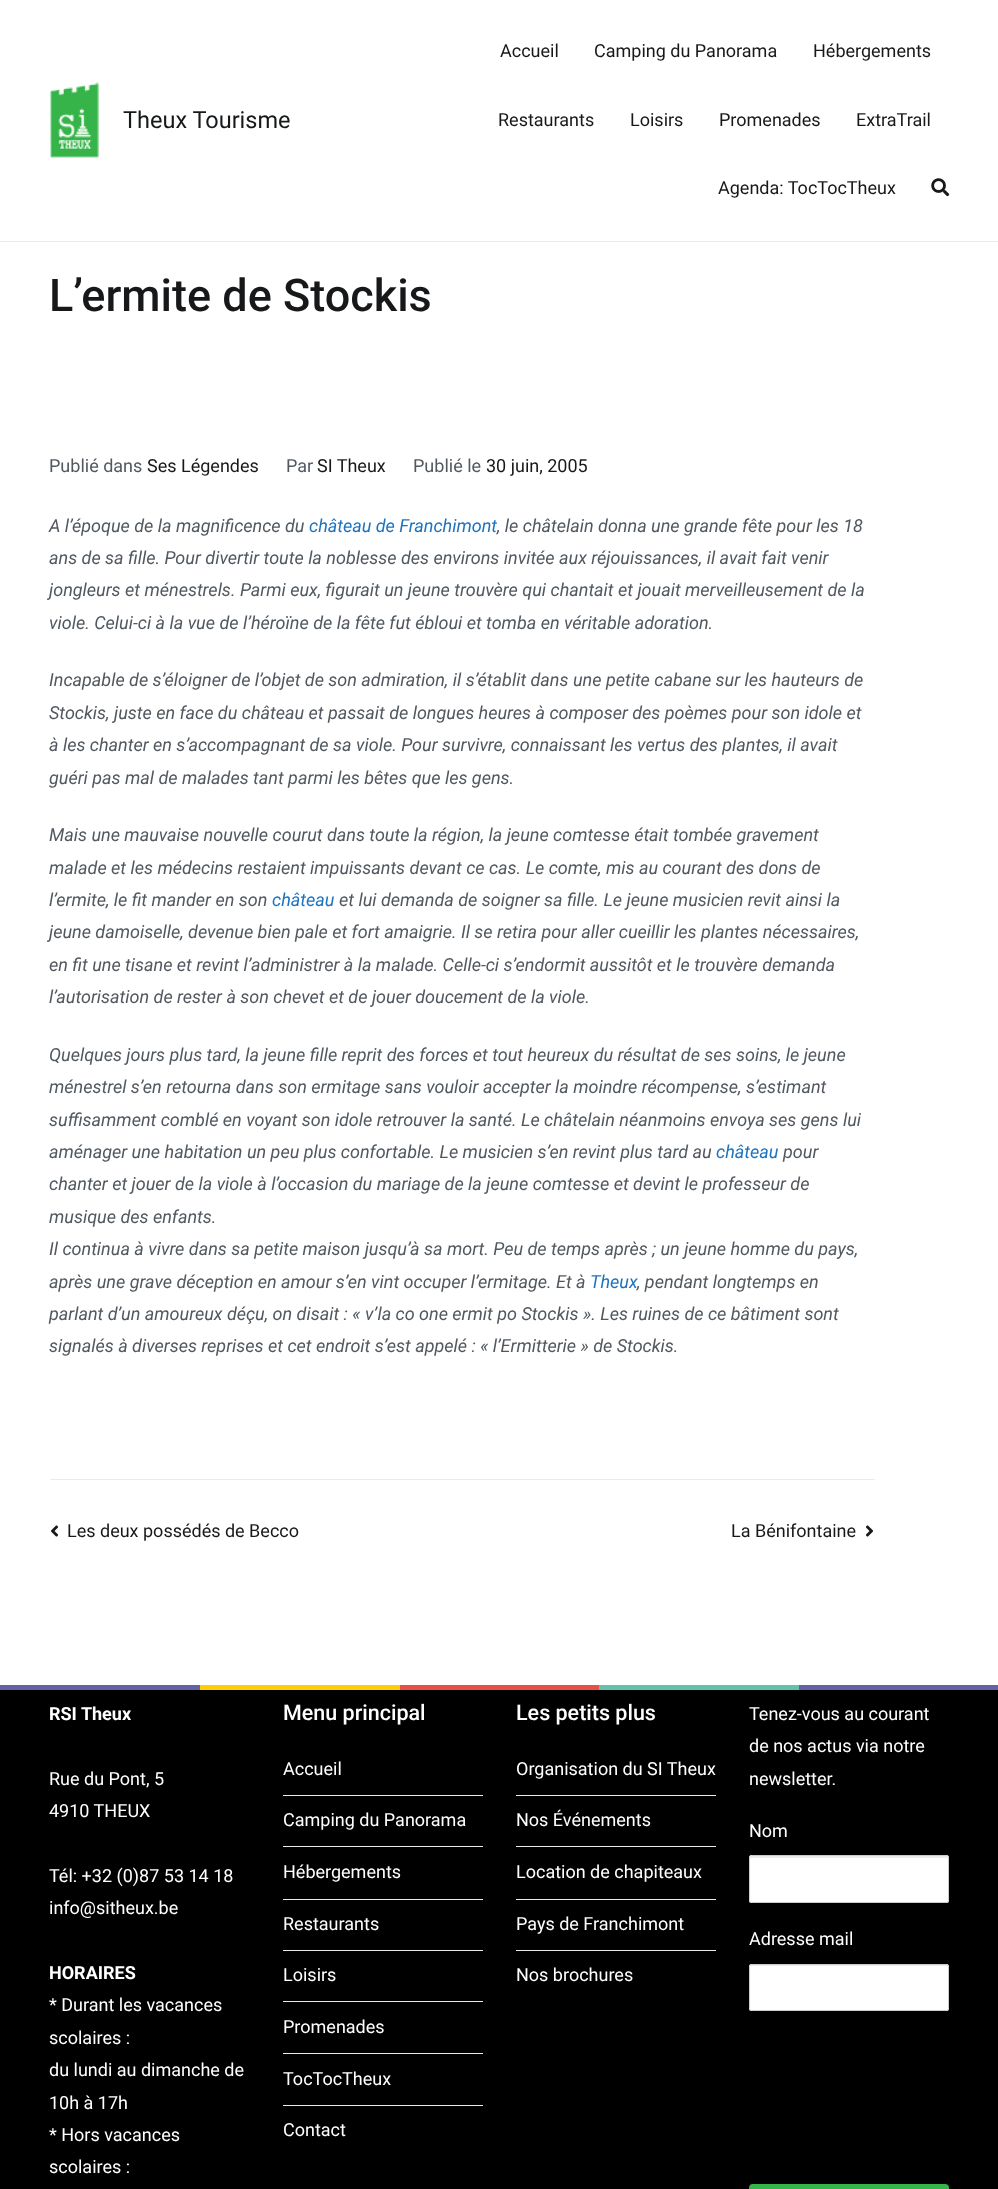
async function draw(canvas) {
  canvas.width = 998;
  canvas.height = 2189;
  const ctx = canvas.getContext('2d');
  ctx.miterLimit = 4;
  ctx.fontKerning = 'normal';
  function label(s, x, y, font, color) {
    ctx.font = font;
    ctx.fillStyle = color;
    ctx.fillText(s, x, y);
  }
  function rect(x, y, w, h, color) {
    ctx.fillStyle = color;
    ctx.fillRect(x, y, w, h);
  }
  function roundedRect(x, y, w, h, r, color) {
    ctx.fillStyle = color;
    ctx.beginPath();
    ctx.roundRect(x, y, w, h, r);
    ctx.fill();
  }
  async function image(src, x, y, w, h) {
    const img = new Image();
    img.src = src;
    await img.decode();
    ctx.drawImage(img, x, y, w, h);
  }
  let path;

  rect(0, 0, 998, 2189, '#fff');
  rect(0, 241, 998, 1, '#e9ecef');
  await image('assets/img1.png', 50, 82, 49, 76);
  label('Theux Tourisme', 123, 128, '23.5px Roboto', '#16181a');
  label('Accueil', 500, 57, '18px Roboto', '#16181a');
  label('Camping du Panorama', 594, 57, '18px Roboto', '#16181a');
  label('Hébergements', 813, 57, '18px Roboto', '#16181a');
  label('Restaurants', 498, 126, '18px Roboto', '#16181a');
  label('Loisirs', 630, 126, '18px Roboto', '#16181a');
  label('Promenades', 719, 126, '18px Roboto', '#16181a');
  label('ExtraTrail', 856, 126, '18px Roboto', '#16181a');
  label('Agenda: TocTocTheux', 718, 194, '18px Roboto', '#16181a');
  await image('assets/img2.png', 931, 178, 19, 19);
  label('L’ermite de Stockis', 49, 311, '500 45px Roboto', '#16181a');
  label('Publié dans', 49, 472, '18px Roboto', '#51585f');
  label('Ses Légendes', 147, 472, '18px Roboto', '#16181a');
  label('Par', 286, 472, '18px Roboto', '#51585f');
  label('SI Theux', 317, 472, '18px Roboto', '#16181a');
  label('Publié le', 413, 472, '18px Roboto', '#51585f');
  label('30 juin, 2005', 486, 472, '18px Roboto', '#16181a');
  label('A l’époque de la magnificence du', 49, 532, 'italic 18px Roboto', '#51585f');
  label('château de Franchimont', 309, 532, 'italic 18px Roboto', '#1e73be');
  label(', le châtelain donna une grande fête pour les 18', 497, 532, 'italic 18px Roboto', '#51585f');
  label('ans de sa fille. Pour divertir toute la noblesse des environs invitée aux réjouissances, il avait fait venir', 49, 564, 'italic 18px Roboto', '#51585f');
  label('jongleurs et ménestrels. Parmi eux, figurait un jeune trouvère qui chantait et jouait merveilleusement de la', 49, 596, 'italic 18px Roboto', '#51585f');
  label('viole. Celui-ci à la vue de l’héroïne de la fête fut ébloui et tomba en véritable adoration.', 49, 629, 'italic 18px Roboto', '#51585f');
  label('Incapable de s’éloigner de l’objet de son admiration, il s’établit dans une petite cabane sur les hauteurs de', 49, 686, 'italic 18px Roboto', '#51585f');
  label('Stockis, juste en face du château et passait de longues heures à composer des poèmes pour son idole et', 49, 719, 'italic 18px Roboto', '#51585f');
  label('à les chanter en s’accompagnant de sa viole. Pour survivre, connaissant les vertus des plantes, il avait', 49, 751, 'italic 18px Roboto', '#51585f');
  label('guéri pas mal de malades tant parmi les bêtes que les gens.', 49, 784, 'italic 18px Roboto', '#51585f');
  label('Mais une mauvaise nouvelle courut dans toute la région, la jeune comtesse était tombée gravement', 49, 841, 'italic 18px Roboto', '#51585f');
  label('malade et les médecins restaient impuissants devant ce cas. Le comte, mis au courant des dons de', 49, 874, 'italic 18px Roboto', '#51585f');
  label('l’ermite, le fit mander en son', 49, 906, 'italic 18px Roboto', '#51585f');
  label('château', 272, 906, 'italic 18px Roboto', '#1e73be');
  label('et lui demanda de soigner sa fille. Le jeune musicien revit ainsi la', 339, 906, 'italic 18px Roboto', '#51585f');
  label('jeune damoiselle, devenue bien pale et fort amaigrie. Il se retira pour aller cueillir les plantes nécessaires,', 49, 938, 'italic 18px Roboto', '#51585f');
  label('en fit une tisane et revint l’administrer à la malade. Celle-ci s’endormit aussitôt et le trouvère demanda', 49, 971, 'italic 18px Roboto', '#51585f');
  label('l’autorisation de rester à son chevet et de jouer doucement de la viole.', 49, 1003, 'italic 18px Roboto', '#51585f');
  label('Quelques jours plus tard, la jeune fille reprit des forces et tout heureux du résultat de ses soins, le jeune', 49, 1061, 'italic 18px Roboto', '#51585f');
  label('ménestrel s’en retourna dans son ermitage sans vouloir accepter la moindre récompense, s’estimant', 49, 1093, 'italic 18px Roboto', '#51585f');
  label('suffisamment comblé en voyant son idole retrouver la santé. Le châtelain néanmoins envoya ses gens lui', 49, 1126, 'italic 18px Roboto', '#51585f');
  label('aménager une habitation un peu plus confortable. Le musicien s’en revint plus tard au', 49, 1158, 'italic 18px Roboto', '#51585f');
  label('château', 716, 1158, 'italic 18px Roboto', '#1e73be');
  label('pour', 783, 1158, 'italic 18px Roboto', '#51585f');
  label('chanter et jouer de la viole à l’occasion du mariage de la jeune comtesse et devint le professeur de', 49, 1190, 'italic 18px Roboto', '#51585f');
  label('musique des enfants.', 49, 1223, 'italic 18px Roboto', '#51585f');
  label('Il continua à vivre dans sa petite maison jusqu’à sa mort. Peu de temps après ; un jeune homme du pays,', 49, 1255, 'italic 18px Roboto', '#51585f');
  label('après une grave déception en amour s’en vint occuper l’ermitage. Et à', 49, 1288, 'italic 18px Roboto', '#51585f');
  label('Theux', 590, 1288, 'italic 18px Roboto', '#1e73be');
  label(', pendant longtemps en', 637, 1288, 'italic 18px Roboto', '#51585f');
  label('parlant d’un amoureux déçu, on disait : « v’la co one ermit po Stockis ». Les ruines de ce bâtiment sont', 49, 1320, 'italic 18px Roboto', '#51585f');
  label('signalés à diverses reprises et cet endroit s’est appelé : « l’Ermitterie » de Stockis.', 49, 1352, 'italic 18px Roboto', '#51585f');
  rect(50, 1479, 825, 1, '#e9ecef');
  await image('assets/img3.png', 51, 1525, 7, 12);
  label('Les deux possédés de Becco', 67, 1537, '18px Roboto', '#16181a');
  label('La Bénifontaine', 731, 1537, '18px Roboto', '#16181a');
  await image('assets/img4.png', 866, 1525, 7, 12);
  rect(0, 1685, 200, 5, '#6262a4');
  rect(200, 1685, 200, 5, '#ffcd02');
  rect(400, 1685, 199, 5, '#e84f47');
  rect(599, 1685, 200, 5, '#65c1ac');
  rect(799, 1685, 199, 5, '#6262a4');
  rect(0, 1690, 998, 499, '#000');
  label('RSI Theux', 49, 1720, 'bold 18px Roboto', '#fff');
  label('Rue du Pont, 5', 49, 1785, '18px Roboto', '#fff');
  label('4910 THEUX', 49, 1817, '18px Roboto', '#fff');
  label('Tél: +32 (0)87 53 14 18', 49, 1882, '18px Roboto', '#fff');
  label('info@sitheux.be', 49, 1914, '18px Roboto', '#fff');
  label('HORAIRES', 49, 1979, 'bold 18px Roboto', '#fff');
  label('* Durant les vacances', 49, 2011, '18px Roboto', '#fff');
  label('scolaires :', 49, 2044, '18px Roboto', '#fff');
  label('du lundi au dimanche de', 49, 2076, '18px Roboto', '#fff');
  label('10h à 17h', 49, 2109, '18px Roboto', '#fff');
  label('* Hors vacances', 49, 2141, '18px Roboto', '#fff');
  label('scolaires :', 49, 2173, '18px Roboto', '#fff');
  label('Menu principal', 283, 1720, '500 21.5px Roboto', '#fff');
  rect(283, 1795, 200, 1, '#e9ecef');
  label('Accueil', 283, 1775, '18px Roboto', '#fff');
  rect(283, 1846, 200, 1, '#e9ecef');
  label('Camping du Panorama', 283, 1826, '18px Roboto', '#fff');
  rect(283, 1899, 200, 1, '#e9ecef');
  label('Hébergements', 283, 1878, '18px Roboto', '#fff');
  rect(283, 1950, 200, 1, '#e9ecef');
  label('Restaurants', 283, 1930, '18px Roboto', '#fff');
  rect(283, 2001, 200, 1, '#e9ecef');
  label('Loisirs', 283, 1981, '18px Roboto', '#fff');
  rect(283, 2053, 200, 1, '#e9ecef');
  label('Promenades', 283, 2033, '18px Roboto', '#fff');
  rect(283, 2105, 200, 1, '#e9ecef');
  label('TocTocTheux', 283, 2085, '18px Roboto', '#fff');
  label('Contact', 283, 2136, '18px Roboto', '#fff');
  label('Les petits plus', 516, 1720, '500 21.5px Roboto', '#fff');
  rect(516, 1795, 200, 1, '#e9ecef');
  label('Organisation du SI Theux', 516, 1775, '18px Roboto', '#fff');
  rect(516, 1846, 200, 1, '#e9ecef');
  label('Nos Événements', 516, 1826, '18px Roboto', '#fff');
  rect(516, 1899, 200, 1, '#e9ecef');
  label('Location de chapiteaux', 516, 1878, '18px Roboto', '#fff');
  rect(516, 1950, 200, 1, '#e9ecef');
  label('Pays de Franchimont', 516, 1930, '18px Roboto', '#fff');
  label('Nos brochures', 516, 1981, '18px Roboto', '#fff');
  label('Tenez-vous au courant', 749, 1720, '18px Roboto', '#fff');
  label('de nos actus via notre', 749, 1752, '18px Roboto', '#fff');
  label('newsletter.', 749, 1785, '18px Roboto', '#fff');
  label('Nom', 749, 1837, '18px Roboto', '#fff');
  roundedRect(749, 1855, 200, 48, 2.5, '#fff');
  ctx.fillStyle = '#ececec';
  path = new Path2D('M751 1858H946C947 1858 948 1858 948 1859C948 1858 948 1856 947 1856H751C750 1856 750 1858 750 1859Z');
  ctx.fill(path);
  ctx.beginPath();
  ctx.roundRect(749.5, 1855.5, 199, 47, 2);
  ctx.strokeStyle = '#ccc';
  ctx.stroke();
  label('Adresse mail', 749, 1945, '18px Roboto', '#fff');
  roundedRect(749, 1964, 200, 47, 2.5, '#fff');
  ctx.fillStyle = '#ececec';
  path = new Path2D('M751 1966H946L948 1967V1968C948 1967 948 1965 947 1965H751C750 1965 750 1967 750 1968Z');
  ctx.fill(path);
  ctx.beginPath();
  ctx.roundRect(749.5, 1964.5, 199, 46, 2);
  ctx.stroke();
  roundedRect(749, 2184, 200, 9, 4, '#36b449');
}

draw(document.querySelector('canvas'));
